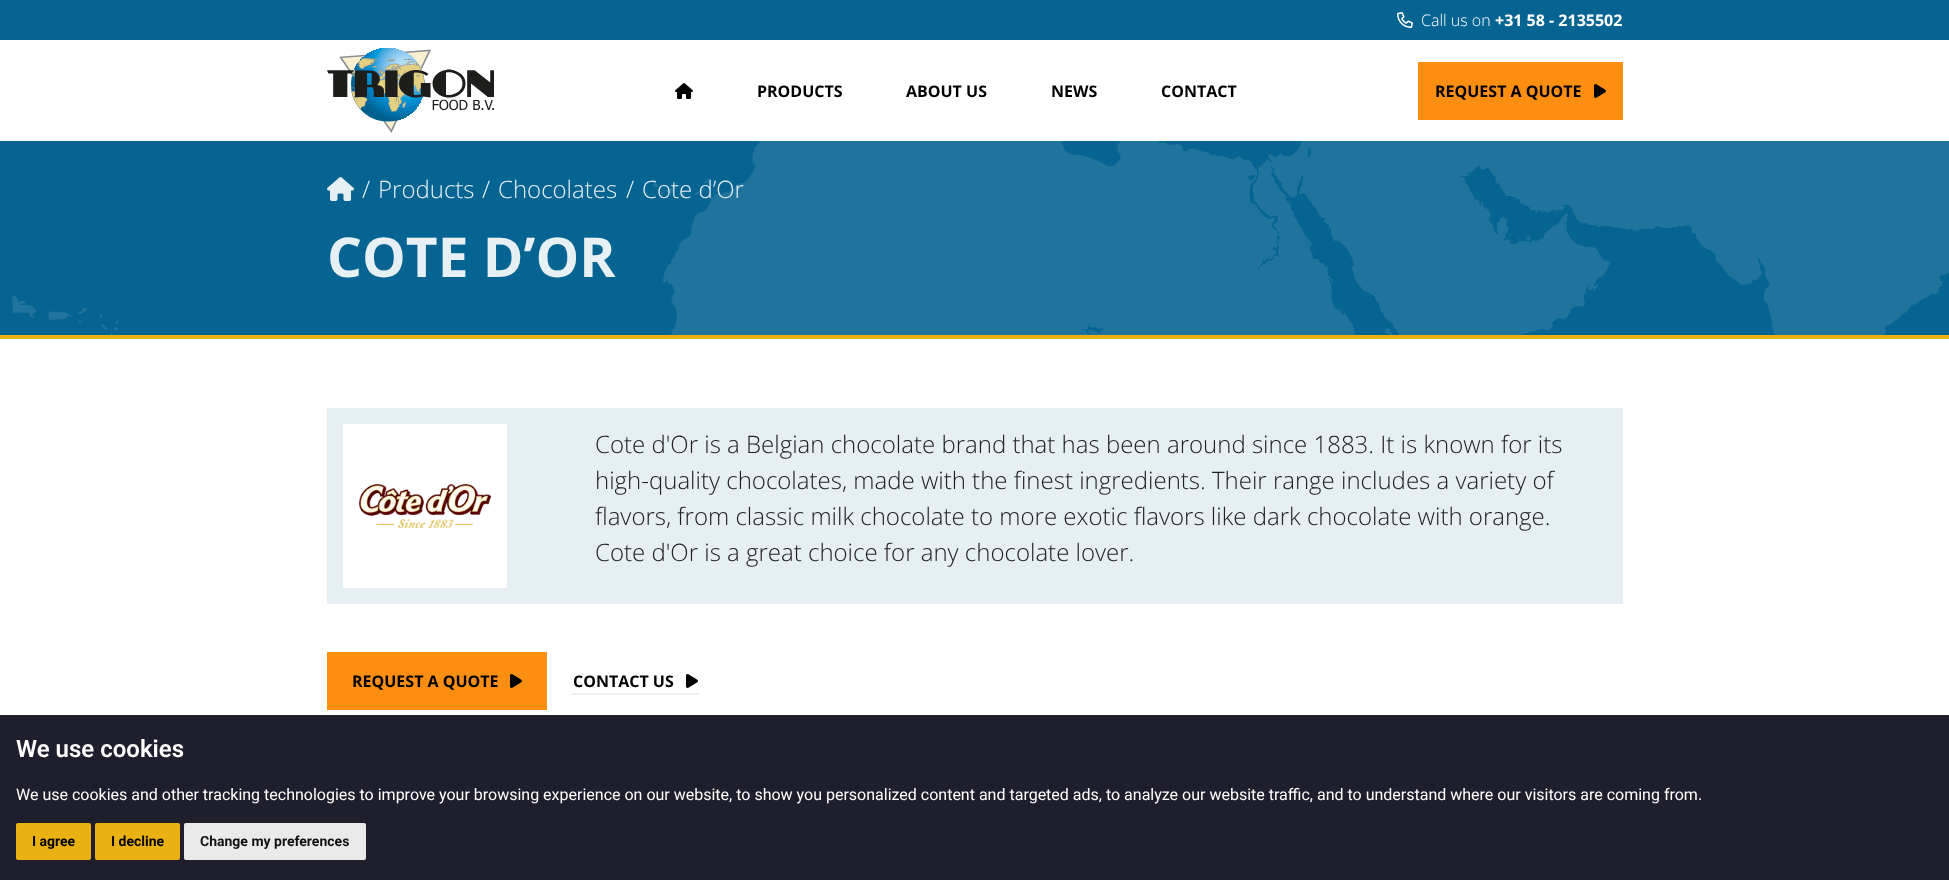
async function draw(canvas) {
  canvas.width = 1949;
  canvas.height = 880;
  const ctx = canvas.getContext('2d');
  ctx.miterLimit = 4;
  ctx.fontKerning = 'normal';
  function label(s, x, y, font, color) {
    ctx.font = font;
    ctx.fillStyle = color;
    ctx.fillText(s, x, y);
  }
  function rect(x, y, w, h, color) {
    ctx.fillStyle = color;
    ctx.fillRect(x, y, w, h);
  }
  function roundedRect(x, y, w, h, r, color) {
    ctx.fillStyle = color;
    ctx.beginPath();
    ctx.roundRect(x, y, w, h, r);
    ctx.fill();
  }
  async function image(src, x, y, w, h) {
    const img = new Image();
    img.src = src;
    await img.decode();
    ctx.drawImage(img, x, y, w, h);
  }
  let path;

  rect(0, 0, 1949, 880, '#fff');
  rect(0, 0, 1949, 40, '#066492');
  await image('assets/img1.png', 1397, 12, 16, 16);
  label('Call us on', 1421, 26, '300 16px Open Sans', '#fff');
  label('+31 58 - 2135502', 1495, 26, 'bold 16px Open Sans', '#fff');
  await image('assets/img2.png', 327, 48, 167, 85);
  await image('assets/img3.png', 675, 83, 18, 16);
  label('PRODUCTS', 757, 97, 'bold 16px Open Sans', '#000');
  label('ABOUT US', 906, 97, 'bold 16px Open Sans', '#000');
  label('NEWS', 1051, 97, 'bold 16px Open Sans', '#000');
  label('CONTACT', 1161, 97, 'bold 16px Open Sans', '#000');
  rect(1418, 62, 205, 58, '#fc8e11');
  label('REQUEST A QUOTE', 1435, 97, 'bold 16px Open Sans', '#000');
  await image('assets/img4.png', 1594, 84, 12, 14);
  rect(0, 335, 1949, 4, '#e9b111');
  rect(0, 141, 1949, 194, '#066492');
  await image('assets/img5.png', 12, 141, 1937, 194);
  await image('assets/img6.png', 327, 177, 27, 24);
  label('/', 362, 198, '300 24px Open Sans', '#e7f0f4');
  label('Products', 378, 198, '300 24px Open Sans', '#e7f0f4');
  label('/', 482, 198, '300 24px Open Sans', '#e7f0f4');
  label('Chocolates', 498, 198, '300 24px Open Sans', '#e7f0f4');
  label('/', 626, 198, '300 24px Open Sans', '#e7f0f4');
  label('Cote d’Or', 642, 198, '300 24px Open Sans', '#e7f0f4');
  label('COTE D’OR', 327, 277, 'bold 55px Open Sans', '#e7f0f4');
  rect(327, 408, 1296, 196, '#e5eff4');
  rect(343, 424, 164, 164, '#fff');
  await image('assets/img7.png', 359, 484, 132, 44);
  label('Cote d\'Or is a Belgian chocolate brand that has been around since 1883. It is known for its', 595, 453, '300 24px Open Sans', '#222');
  label('high-quality chocolates, made with the finest ingredients. Their range includes a variety of', 595, 489, '300 24px Open Sans', '#222');
  label('flavors, from classic milk chocolate to more exotic flavors like dark chocolate with orange.', 595, 525, '300 24px Open Sans', '#222');
  label('Cote d\'Or is a great choice for any chocolate lover.', 595, 561, '300 24px Open Sans', '#222');
  rect(327, 652, 220, 58, '#fc8e11');
  label('REQUEST A QUOTE', 352, 687, 'bold 16px Open Sans', '#000');
  await image('assets/img4.png', 510, 674, 12, 14);
  ctx.fillStyle = '#eee';
  path = new Path2D('M700 695H571L573 693H698Z');
  ctx.fill(path);
  label('CONTACT US', 573, 687, 'bold 16px Open Sans', '#000');
  await image('assets/img8.png', 686, 674, 12, 14);
  rect(0, 715, 1949, 165, '#1e1e2d');
  label('We use cookies', 16, 757, '600 24px Roboto', '#fff');
  label('We use cookies and other tracking technologies to improve your browsing experience on our website, to show you personalized content and targeted ads, to analyze our website traffic, and to understand where our visitors are coming from.', 16, 800, '16px Roboto', '#fff');
  roundedRect(16, 823, 75, 37, 2, '#e9b111');
  label('I agree', 32, 846, 'bold 14px Roboto', '#000');
  roundedRect(95, 823, 85, 37, 2, '#e9b111');
  label('I decline', 111, 846, 'bold 14px Roboto', '#000');
  roundedRect(184, 823, 182, 37, 2, '#eaeaea');
  label('Change my preferences', 200, 846, 'bold 14px Roboto', '#111');
}

draw(document.querySelector('canvas'));
